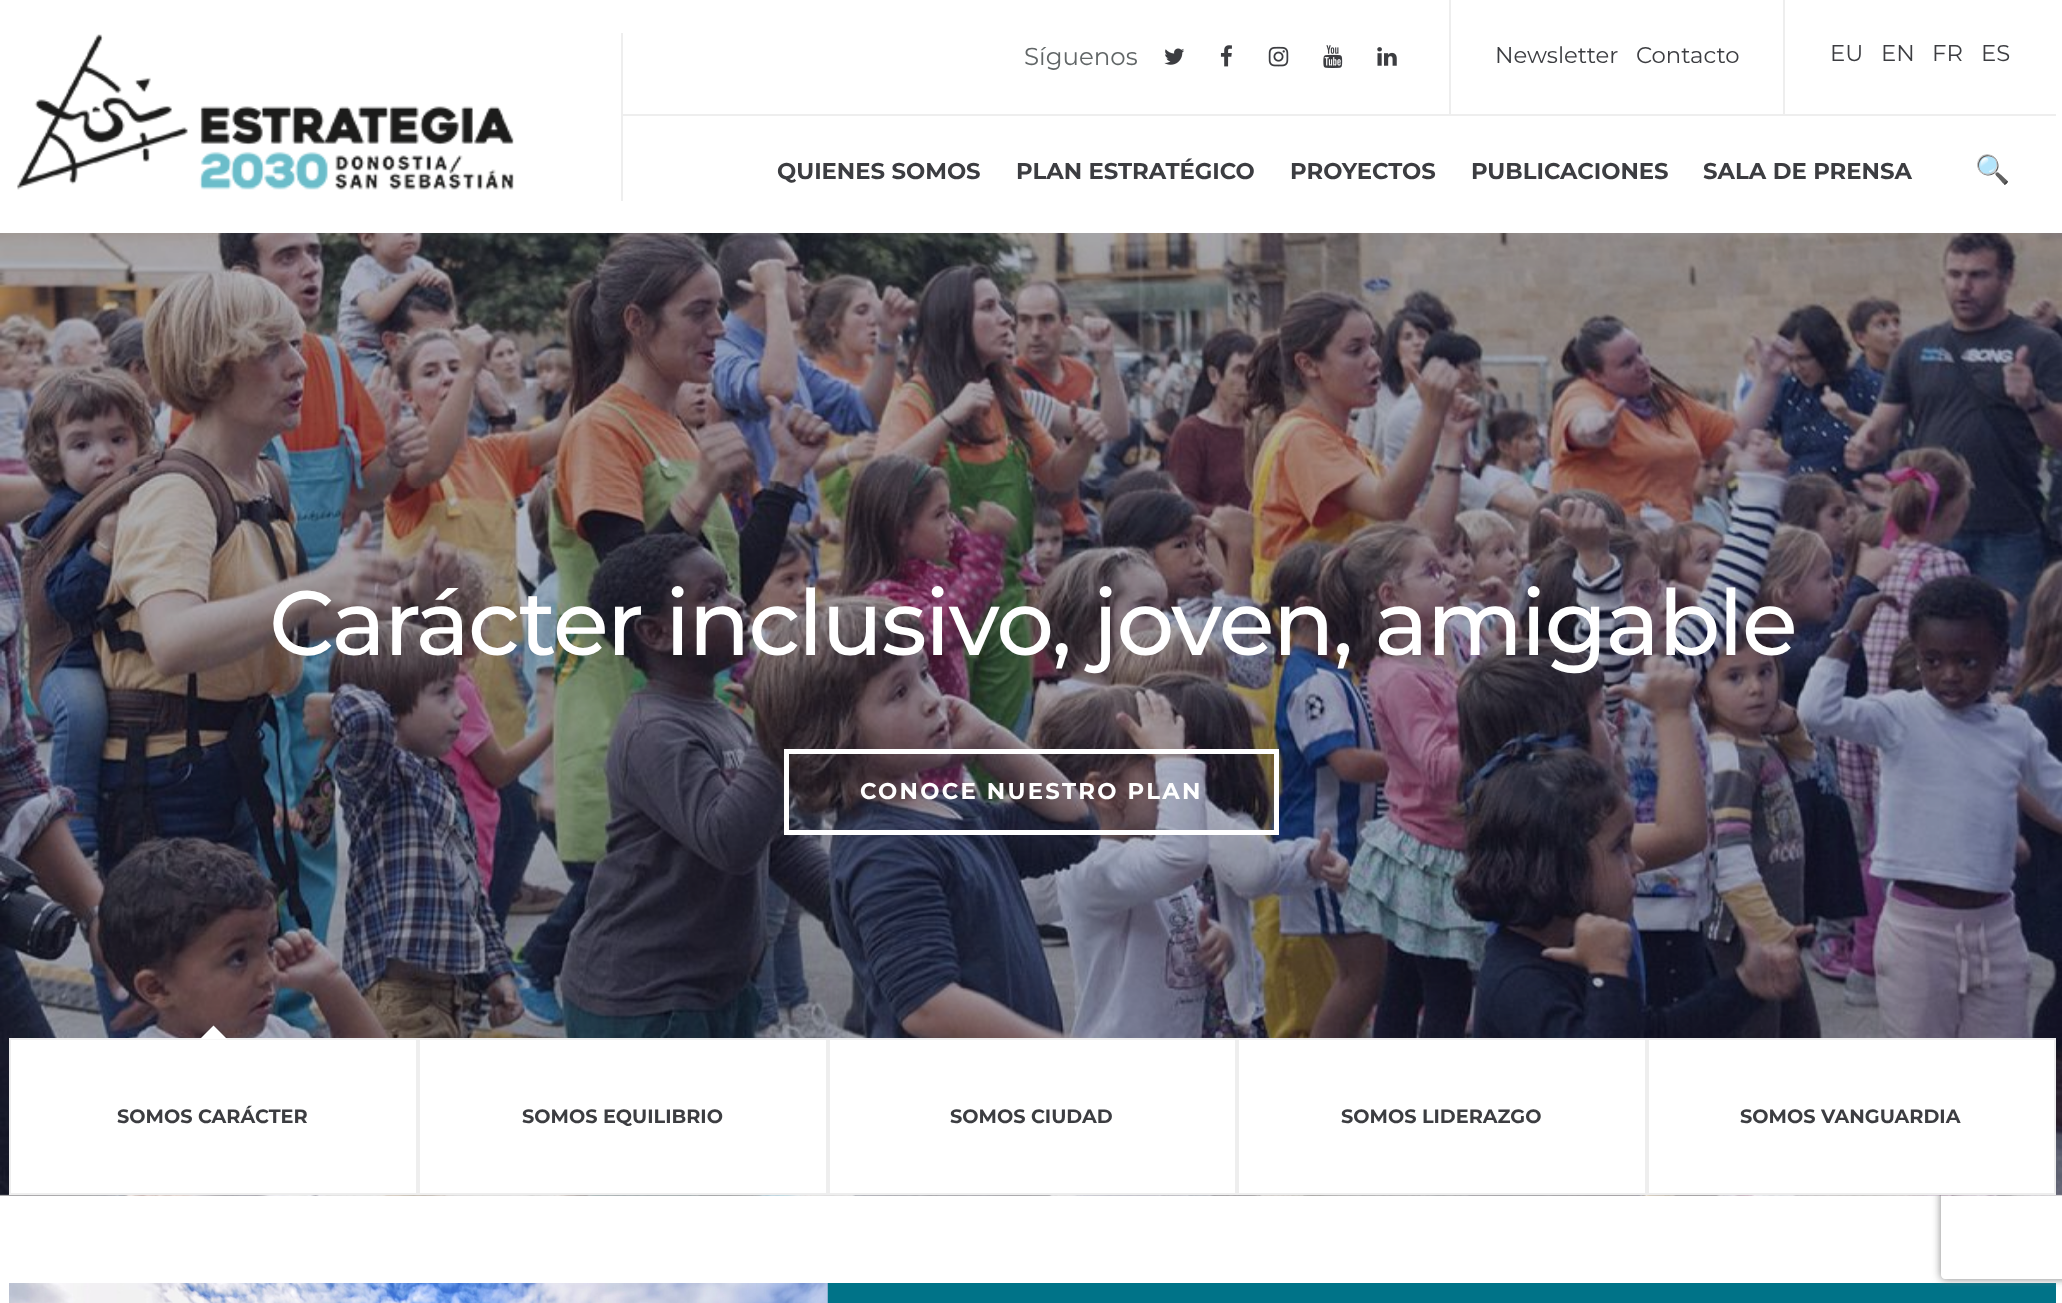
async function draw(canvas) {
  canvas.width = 2062;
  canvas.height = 1303;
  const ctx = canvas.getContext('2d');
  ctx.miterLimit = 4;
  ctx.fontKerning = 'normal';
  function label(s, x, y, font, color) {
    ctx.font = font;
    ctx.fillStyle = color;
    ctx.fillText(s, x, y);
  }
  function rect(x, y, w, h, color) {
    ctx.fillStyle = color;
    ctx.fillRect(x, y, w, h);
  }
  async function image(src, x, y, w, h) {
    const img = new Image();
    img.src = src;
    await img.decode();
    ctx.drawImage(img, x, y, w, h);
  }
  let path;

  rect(0, 0, 2062, 1303, '#fff');
  rect(621, 33, 2, 168, '#eee');
  await image('assets/img1.png', 17, 34, 497, 156);
  rect(623, 114, 1433, 2, '#eee');
  label('Síguenos', 1024, 65, '24.5px Montserrat', '#616667');
  await image('assets/img2.png', 1164, 48, 21, 17);
  await image('assets/img3.png', 1220, 45, 12, 22);
  await image('assets/img4.png', 1268, 46, 21, 21);
  await image('assets/img5.png', 1323, 45, 20, 23);
  await image('assets/img6.png', 1377, 47, 20, 19);
  rect(1449, 0, 2, 114, '#eee');
  label('Newsletter', 1495, 63, '22.75px Montserrat', '#3c3d41');
  label('Contacto', 1636, 63, '22.75px Montserrat', '#3c3d41');
  rect(1783, 0, 2, 114, '#eee');
  label('EU', 1830, 61, '22.75px Montserrat', '#3c3d41');
  label('EN', 1881, 61, '22.75px Montserrat', '#3c3d41');
  label('FR', 1932, 61, '22.75px Montserrat', '#3c3d41');
  label('ES', 1981, 61, '22.75px Montserrat', '#3c3d41');
  label('QUIENES SOMOS', 777, 179, 'bold 22.75px Montserrat', '#3c3d41');
  label('PLAN ESTRATÉGICO', 1016, 179, 'bold 22.75px Montserrat', '#3c3d41');
  label('PROYECTOS', 1290, 179, 'bold 22.75px Montserrat', '#3c3d41');
  label('PUBLICACIONES', 1471, 179, 'bold 22.75px Montserrat', '#3c3d41');
  label('SALA DE PRENSA', 1703, 179, 'bold 22.75px Montserrat', '#3c3d41');
  label('🔍', 1975, 179, '28px Noto Color Emoji', '#333');
  rect(827, 1283, 1229, 20, '#007388');
  ctx.save();
  path = new Path2D('M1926 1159H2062V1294H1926ZM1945 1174H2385C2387 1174 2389 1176 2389 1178V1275C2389 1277 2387 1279 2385 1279H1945C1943 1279 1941 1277 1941 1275V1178C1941 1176 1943 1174 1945 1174Z');
  ctx.clip(path, 'evenodd');
  ctx.fillStyle = '#808080';
  ctx.filter = 'blur(4.5px)';
  ctx.beginPath();
  ctx.roundRect(1941, 1174, 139, 105, 4);
  ctx.fill();
  ctx.filter = 'none';
  ctx.restore();
  await image('assets/img7.png', 0, 233, 2062, 963);
  rect(0, 233, 2062, 962, '#0715374d');
  ctx.letterSpacing = '-1.85px';
  label('Carácter inclusivo, joven, amigable', 269, 655, '500 91px Montserrat', '#fff');
  ctx.strokeStyle = '#fff';
  ctx.lineWidth = 5;
  ctx.strokeRect(786.5, 751.5, 490, 81);
  ctx.letterSpacing = '2.3px';
  label('CONOCE NUESTRO PLAN', 860, 799, 'bold 22.75px Montserrat', '#fff');
  ctx.beginPath();
  ctx.rect(10, 1039, 407, 155);
  ctx.fill();
  ctx.strokeStyle = '#eee';
  ctx.lineWidth = 2;
  ctx.stroke();
  path = new Path2D('M227.5 1039.5H199.5L213.5 1025.5Z');
  ctx.fill(path);
  ctx.letterSpacing = '0px';
  label('SOMOS CARÁCTER', 117, 1123, 'bold 19.25px Montserrat', '#3c3d41');
  ctx.fillStyle = '#fff';
  ctx.beginPath();
  ctx.rect(419, 1039, 408, 155);
  ctx.fill();
  ctx.stroke();
  label('SOMOS EQUILIBRIO', 522, 1123, 'bold 19.25px Montserrat', '#3c3d41');
  ctx.fillStyle = '#fff';
  ctx.beginPath();
  ctx.rect(829, 1039, 407, 155);
  ctx.fill();
  ctx.stroke();
  label('SOMOS CIUDAD', 950, 1123, 'bold 19.25px Montserrat', '#3c3d41');
  ctx.fillStyle = '#fff';
  ctx.beginPath();
  ctx.rect(1238, 1039, 408, 155);
  ctx.fill();
  ctx.stroke();
  label('SOMOS LIDERAZGO', 1341, 1123, 'bold 19.25px Montserrat', '#3c3d41');
  ctx.fillStyle = '#fff';
  ctx.beginPath();
  ctx.rect(1648, 1039, 407, 155);
  ctx.fill();
  ctx.stroke();
  label('SOMOS VANGUARDIA', 1740, 1123, 'bold 19.25px Montserrat', '#3c3d41');
  await image('assets/img8.png', 9, 1283, 819, 20);
}

draw(document.querySelector('canvas'));
